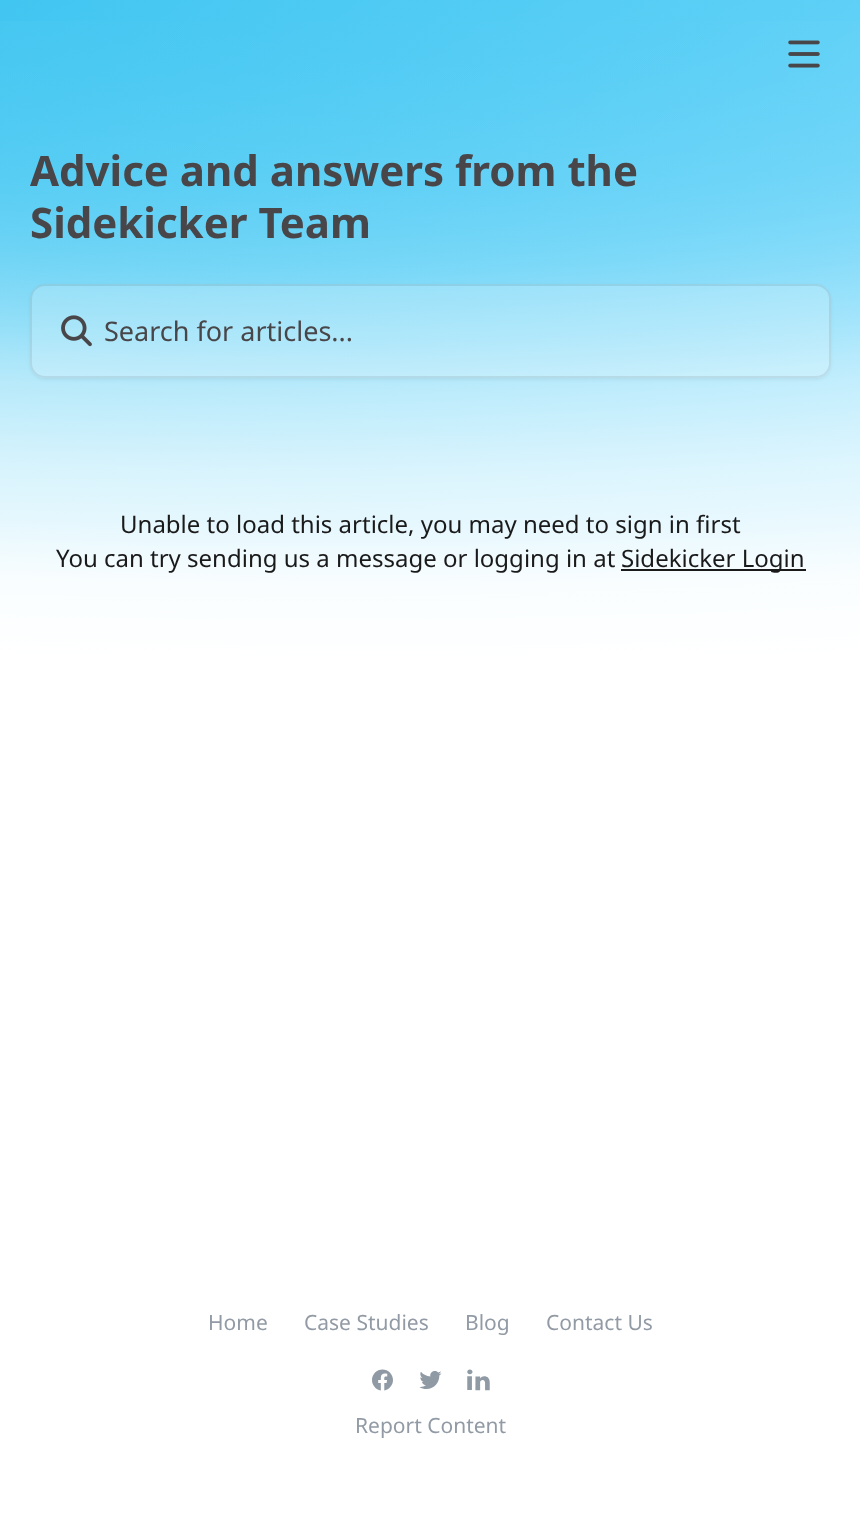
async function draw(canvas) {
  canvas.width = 860;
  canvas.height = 1515;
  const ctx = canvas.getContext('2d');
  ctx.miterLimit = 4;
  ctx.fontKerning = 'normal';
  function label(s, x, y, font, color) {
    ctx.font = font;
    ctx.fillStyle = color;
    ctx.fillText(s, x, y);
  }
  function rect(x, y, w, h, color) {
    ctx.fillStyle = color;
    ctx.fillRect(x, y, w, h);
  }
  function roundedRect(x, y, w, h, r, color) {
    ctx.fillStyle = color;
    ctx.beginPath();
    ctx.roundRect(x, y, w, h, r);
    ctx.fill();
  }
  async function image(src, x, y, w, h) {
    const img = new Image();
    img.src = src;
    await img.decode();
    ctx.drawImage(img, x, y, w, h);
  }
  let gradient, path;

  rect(0, 0, 860, 1515, '#fff');
  gradient = ctx.createLinearGradient(108, -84, 753, 750);
  gradient.addColorStop(0, '#41c6f1');
  gradient.addColorStop(1, '#7cdafc');
  ctx.fillStyle = gradient;
  ctx.fillRect(0, 0, 860, 656);
  gradient = ctx.createRadialGradient(431, 0, 0, 431, 0, 2870);
  gradient.addColorStop(0, '#ffffff00');
  gradient.addColorStop(0.12, '#ffffff03');
  gradient.addColorStop(0.21, '#ffffff0a');
  gradient.addColorStop(0.29, '#ffffff12');
  gradient.addColorStop(0.35, '#ffffff1f');
  gradient.addColorStop(0.4, '#ffffff2e');
  gradient.addColorStop(0.44, '#ffffff40');
  gradient.addColorStop(0.48, '#ffffff54');
  gradient.addColorStop(0.52, '#ffffff69');
  gradient.addColorStop(0.55, '#ffffff7d');
  gradient.addColorStop(0.59, '#ffffff94');
  gradient.addColorStop(0.65, '#ffffffab');
  gradient.addColorStop(0.71, '#ffffffc2');
  gradient.addColorStop(0.79, '#ffffffd6');
  gradient.addColorStop(0.88, '#fffffff5');
  gradient.addColorStop(1, '#fff');
  ctx.fillStyle = gradient;
  ctx.beginPath();
  ctx.rect(0, 21, 860, 635);
  ctx.save();
  ctx.clip();
  ctx.scale(1, 666 / 2870);
  ctx.fillRect(0, 0, 860, 6529);
  ctx.restore();
  await image('assets/img1.png', 788, 40, 32, 28);
  label('Advice and answers from the', 30, 186, 'bold 42px Noto Sans', '#494649');
  label('Sidekicker Team', 30, 238, 'bold 42px Noto Sans', '#494649');
  ctx.save();
  path = new Path2D('M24 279H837V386H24ZM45 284H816C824.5 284 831 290.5 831 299V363C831 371.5 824.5 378 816 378H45C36.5 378 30 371.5 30 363V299C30 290.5 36.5 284 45 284Z');
  ctx.clip(path, 'evenodd');
  ctx.fillStyle = '#0000000d';
  ctx.filter = 'blur(1.5px)';
  ctx.beginPath();
  ctx.roundRect(30, 285, 801, 95, 15);
  ctx.fill();
  ctx.filter = 'none';
  ctx.restore();
  roundedRect(30, 284, 801, 94, 15, '#ffffff33');
  ctx.beginPath();
  ctx.roundRect(31, 285, 799, 92, 14);
  ctx.strokeStyle = '#00000014';
  ctx.lineWidth = 2;
  ctx.stroke();
  await image('assets/img2.png', 61, 315, 31, 32);
  label('Search for articles...', 104, 341, '27px Noto Sans', '#494649');
  label('Unable to load this article, you may need to sign in first', 120, 533, '24px Noto Sans', '#1a1a1a');
  label('You can try sending us a message or logging in at', 56, 567, '24px Noto Sans', '#1a1a1a');
  rect(621, 569, 185, 2, '#1a1a1a');
  label('Sidekicker Login', 621, 567, '24px Noto Sans', '#1a1a1a');
  label('Home', 208, 1330, '21px Noto Sans', '#929ba5');
  label('Case Studies', 304, 1330, '21px Noto Sans', '#929ba5');
  label('Blog', 465, 1330, '21px Noto Sans', '#929ba5');
  label('Contact Us', 546, 1330, '21px Noto Sans', '#929ba5');
  await image('assets/img3.png', 372, 1369, 21, 22);
  await image('assets/img4.png', 419, 1371, 23, 18);
  await image('assets/img5.png', 467, 1369, 23, 22);
  label('Report Content', 355, 1433, '21px Noto Sans', '#929ba5');
}

draw(document.querySelector('canvas'));
